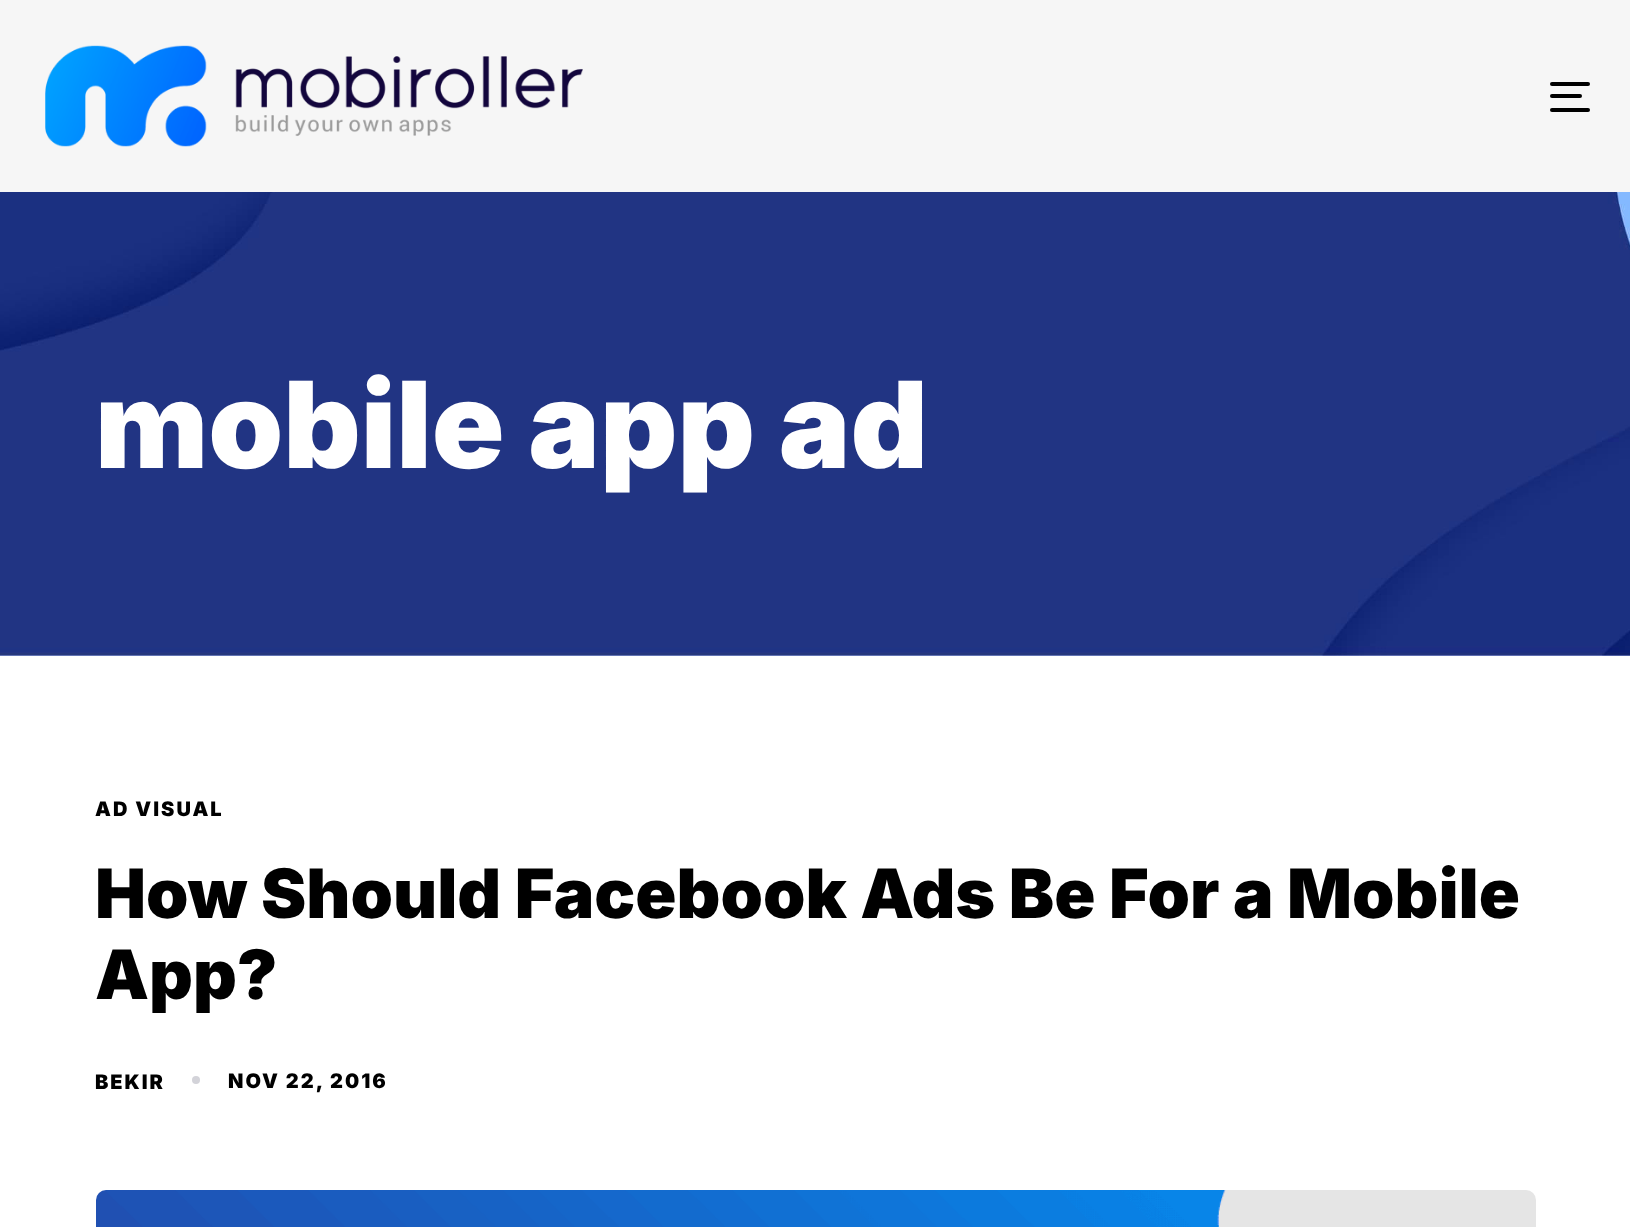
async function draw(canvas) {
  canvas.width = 1630;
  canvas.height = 1227;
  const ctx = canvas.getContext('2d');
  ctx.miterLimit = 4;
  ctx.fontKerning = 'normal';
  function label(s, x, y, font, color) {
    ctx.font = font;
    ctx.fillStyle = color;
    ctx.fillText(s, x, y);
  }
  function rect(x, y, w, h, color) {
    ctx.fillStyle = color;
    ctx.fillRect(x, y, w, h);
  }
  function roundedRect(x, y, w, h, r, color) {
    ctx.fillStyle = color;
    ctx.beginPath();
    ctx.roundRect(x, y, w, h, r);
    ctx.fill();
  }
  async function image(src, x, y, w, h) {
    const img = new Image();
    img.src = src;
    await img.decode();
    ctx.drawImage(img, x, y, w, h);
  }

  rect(0, 0, 1630, 1227, '#fff');
  rect(0, 0, 1630, 192, '#f6f6f6');
  await image('assets/img1.png', 45, 45, 538, 102);
  roundedRect(1550, 82, 40, 4, 2, '#000');
  roundedRect(1550, 94, 32, 4, 2, '#000');
  roundedRect(1550, 108, 40, 4, 2, '#000');
  await image('assets/img2.png', 0, 192, 1630, 464);
  label('mobile app ad', 95, 468, '900 120px Inter', '#fff');
  ctx.letterSpacing = '2px';
  label('AD VISUAL', 95, 816, '900 20px Inter', '#000');
  ctx.letterSpacing = '0px';
  label('How Should Facebook Ads Be For a Mobile', 95, 918, '900 68px Inter', '#000');
  label('App?', 95, 999, '900 68px Inter', '#000');
  ctx.letterSpacing = '2px';
  label('BEKIR', 95, 1089, '900 20px Inter', '#000');
  ctx.fillStyle = '#d3d3d9';
  ctx.beginPath();
  ctx.arc(196, 1080, 4, 0, 2 * Math.PI);
  ctx.fill();
  label('NOV 22, 2016', 228, 1088, '900 20px Inter', '#000');
  await image('assets/img3.png', 96, 1190, 1440, 37);
}

draw(document.querySelector('canvas'));
